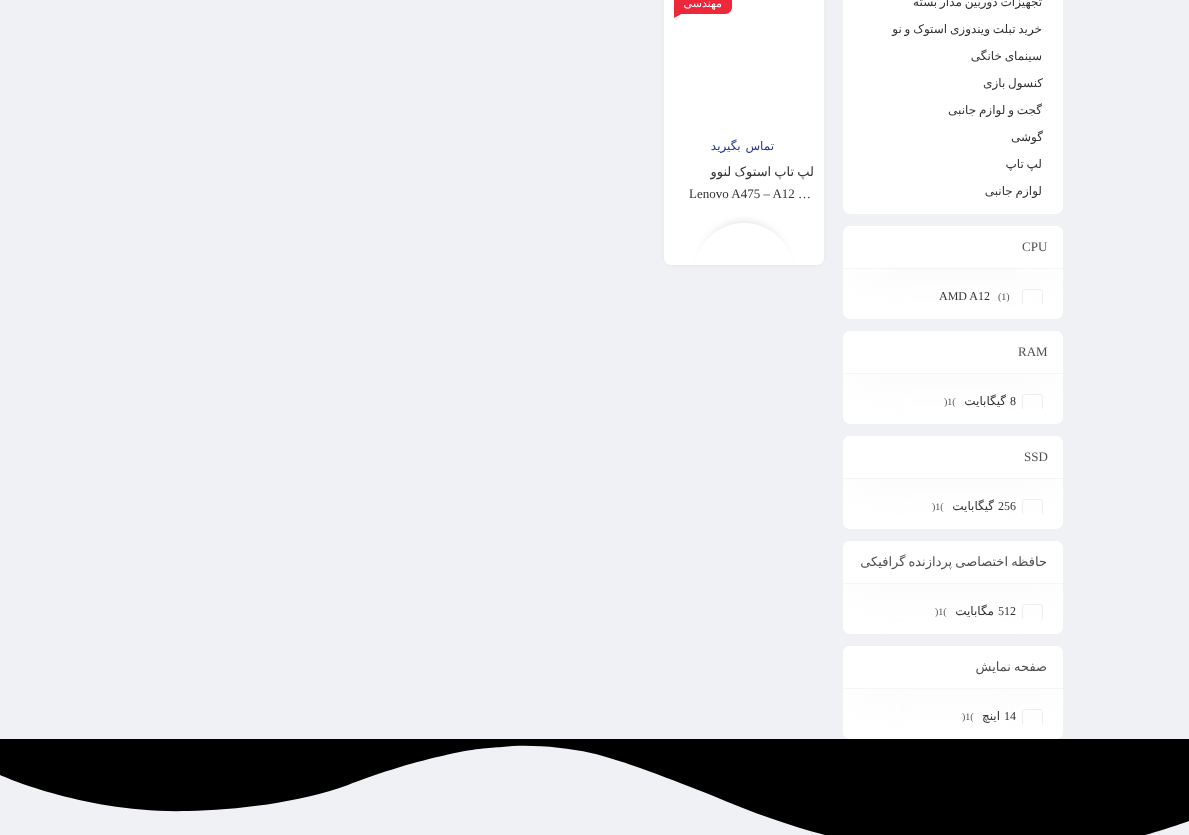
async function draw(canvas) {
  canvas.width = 1189;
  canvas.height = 835;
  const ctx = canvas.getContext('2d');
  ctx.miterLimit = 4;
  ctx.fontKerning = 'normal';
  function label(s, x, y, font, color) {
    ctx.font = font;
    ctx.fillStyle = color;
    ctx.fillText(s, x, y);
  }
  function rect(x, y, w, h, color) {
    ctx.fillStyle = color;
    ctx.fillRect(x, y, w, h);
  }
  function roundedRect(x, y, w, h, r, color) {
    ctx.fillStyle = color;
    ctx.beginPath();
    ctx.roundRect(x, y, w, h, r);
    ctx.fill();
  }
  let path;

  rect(0, 0, 1189, 835, '#eff1f5');
  roundedRect(843, -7, 220, 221, 7, '#fff');
  ctx.wordSpacing = '-1px';
  ctx.direction = 'rtl';
  label('تجهیزات دوربین مدار بسته', 1042, 6, '12px DejaVu Sans', '#333');
  label('خرید تبلت ویندوزی استوک و نو', 1042, 33, '12px DejaVu Sans', '#333');
  label('سینمای خانگی', 1042, 60, '12px DejaVu Sans', '#333');
  label('کنسول بازی', 1043, 87, '12px DejaVu Sans', '#333');
  label('گجت و لوازم جانبی', 1042, 114, '12px DejaVu Sans', '#333');
  ctx.wordSpacing = '0px';
  label('گوشی', 1043, 141, '12px DejaVu Sans', '#333');
  ctx.wordSpacing = '-1px';
  label('لپ تاپ', 1042, 168, '12px DejaVu Sans', '#333');
  label('لوازم جانبی', 1042, 195, '12px DejaVu Sans', '#333');
  roundedRect(843, 226, 220, 93, 7, '#fff');
  ctx.save();
  ctx.beginPath();
  ctx.rect(863, 289, 180, 15);
  ctx.clip();
  ctx.beginPath();
  ctx.roundRect(1022.5, 289.5, 20, 20, 2.5);
  ctx.strokeStyle = '#eee';
  ctx.stroke();
  ctx.restore();
  roundedRect(843, 331, 220, 93, 7, '#fff');
  ctx.fillStyle = '#0000001a';
  ctx.filter = 'blur(3.5px)';
  ctx.beginPath();
  ctx.roundRect(667, -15, 154, 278, 4);
  ctx.fill();
  ctx.filter = 'none';
  roundedRect(664, -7, 160, 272, 7, '#fff');
  ctx.save();
  ctx.beginPath();
  ctx.roundRect(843, 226, 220, 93, 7);
  ctx.clip();
  ctx.fillStyle = '#f5f5f5';
  ctx.filter = 'blur(25px)';
  ctx.beginPath();
  ctx.rect(852, 239, 202, 25);
  ctx.fill();
  ctx.filter = 'none';
  ctx.restore();
  ctx.beginPath();
  ctx.roundRect(843, 226, 220, 43, [7, 7, 0, 0]);
  ctx.fill();
  rect(843, 268, 220, 1, '#f5f5f5');
  ctx.wordSpacing = '0px';
  ctx.direction = 'ltr';
  label('CPU', 1022, 251, '13px Liberation Serif', '#505050');
  label('(1)', 998, 300, '10px Liberation Serif', '#505050');
  label('AMD A12', 939, 300, '12px Liberation Serif', '#333');
  ctx.save();
  ctx.beginPath();
  ctx.rect(863, 394, 180, 15);
  ctx.clip();
  ctx.beginPath();
  ctx.roundRect(1022.5, 394.5, 20, 20, 2.5);
  ctx.strokeStyle = '#eee';
  ctx.stroke();
  ctx.restore();
  roundedRect(843, 436, 220, 93, 7, '#fff');
  ctx.save();
  ctx.beginPath();
  ctx.roundRect(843, 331, 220, 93, 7);
  ctx.clip();
  ctx.fillStyle = '#f5f5f5';
  ctx.filter = 'blur(25px)';
  ctx.beginPath();
  ctx.rect(852, 344, 202, 25);
  ctx.fill();
  ctx.filter = 'none';
  ctx.restore();
  ctx.beginPath();
  ctx.roundRect(843, 331, 220, 43, [7, 7, 0, 0]);
  ctx.fill();
  rect(843, 373, 220, 1, '#f5f5f5');
  label('RAM', 1018, 356, '13px Liberation Serif', '#505050');
  label('8', 1010, 405, '12px Liberation Serif', '#333');
  ctx.direction = 'rtl';
  label('گيگابايت', 1006, 405, '12px DejaVu Sans', '#333');
  ctx.direction = 'ltr';
  label(')1(', 944, 405, '10px Liberation Serif', '#505050');
  ctx.save();
  ctx.beginPath();
  ctx.rect(863, 499, 180, 15);
  ctx.clip();
  ctx.beginPath();
  ctx.roundRect(1022.5, 499.5, 20, 20, 2.5);
  ctx.strokeStyle = '#eee';
  ctx.stroke();
  ctx.restore();
  roundedRect(843, 541, 220, 93, 7, '#fff');
  ctx.save();
  ctx.beginPath();
  ctx.roundRect(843, 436, 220, 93, 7);
  ctx.clip();
  ctx.fillStyle = '#f5f5f5';
  ctx.filter = 'blur(25px)';
  ctx.beginPath();
  ctx.rect(852, 449, 202, 25);
  ctx.fill();
  ctx.filter = 'none';
  ctx.restore();
  ctx.beginPath();
  ctx.roundRect(843, 436, 220, 43, [7, 7, 0, 0]);
  ctx.fill();
  rect(843, 478, 220, 1, '#f5f5f5');
  label('SSD', 1024, 461, '13px Liberation Serif', '#505050');
  label('256', 998, 510, '12px Liberation Serif', '#333');
  ctx.direction = 'rtl';
  label('گیگابایت', 994, 510, '12px DejaVu Sans', '#333');
  ctx.direction = 'ltr';
  label(')1(', 932, 510, '10px Liberation Serif', '#505050');
  ctx.save();
  ctx.beginPath();
  ctx.rect(863, 604, 180, 15);
  ctx.clip();
  ctx.beginPath();
  ctx.roundRect(1022.5, 604.5, 20, 20, 2.5);
  ctx.strokeStyle = '#eee';
  ctx.stroke();
  ctx.restore();
  roundedRect(843, 646, 220, 93, 7, '#fff');
  ctx.save();
  ctx.beginPath();
  ctx.roundRect(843, 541, 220, 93, 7);
  ctx.clip();
  ctx.fillStyle = '#f5f5f5';
  ctx.filter = 'blur(25px)';
  ctx.beginPath();
  ctx.rect(852, 554, 202, 25);
  ctx.fill();
  ctx.filter = 'none';
  ctx.restore();
  ctx.beginPath();
  ctx.roundRect(843, 541, 220, 43, [7, 7, 0, 0]);
  ctx.fill();
  rect(843, 583, 220, 1, '#f5f5f5');
  ctx.wordSpacing = '-1px';
  ctx.direction = 'rtl';
  label('حافظه اختصاصی پردازنده گرافیکی', 1047, 566, '13px DejaVu Sans', '#505050');
  ctx.wordSpacing = '0px';
  ctx.direction = 'ltr';
  label('512', 998, 615, '12px Liberation Serif', '#333');
  ctx.direction = 'rtl';
  label('مگابایت', 994, 615, '12px DejaVu Sans', '#333');
  ctx.direction = 'ltr';
  label(')1(', 935, 615, '10px Liberation Serif', '#505050');
  ctx.save();
  ctx.beginPath();
  ctx.rect(863, 709, 180, 15);
  ctx.clip();
  ctx.beginPath();
  ctx.roundRect(1022.5, 709.5, 20, 20, 2.5);
  ctx.strokeStyle = '#eee';
  ctx.stroke();
  ctx.restore();
  ctx.fillStyle = '#000';
  path = new Path2D('M502 747C528 744 563 747 591 753C619 759 676 781 711 795C801 834 870 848 940 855C968 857 998 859 1063 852C1128 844 1189 821 1189 821V739H0V775C0 775 86 814 188 811C235 810 299 803 348 785C373 775 410 763 442 756C475 748 489 748 502 747Z');
  ctx.fill(path);
  ctx.save();
  ctx.beginPath();
  ctx.roundRect(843, 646, 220, 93, 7);
  ctx.clip();
  ctx.fillStyle = '#f5f5f5';
  ctx.filter = 'blur(25px)';
  ctx.beginPath();
  ctx.rect(852, 659, 202, 25);
  ctx.fill();
  ctx.filter = 'none';
  ctx.restore();
  ctx.fillStyle = '#fff';
  ctx.beginPath();
  ctx.roundRect(843, 646, 220, 43, [7, 7, 0, 0]);
  ctx.fill();
  rect(843, 688, 220, 1, '#f5f5f5');
  ctx.wordSpacing = '-1px';
  ctx.direction = 'rtl';
  label('صفحه نمایش', 1047, 671, '13px DejaVu Sans', '#505050');
  ctx.wordSpacing = '0px';
  ctx.direction = 'ltr';
  label('14', 1004, 720, '12px Liberation Serif', '#333');
  ctx.direction = 'rtl';
  label('اينچ', 1000, 720, '12px DejaVu Sans', '#333');
  ctx.direction = 'ltr';
  label(')1(', 962, 720, '10px Liberation Serif', '#505050');
  ctx.fillStyle = '#ee273a';
  path = new Path2D('M681-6H725C729-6 732-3 732 1V7C732 11 729 14 725 14H674V1C674-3 677-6 681-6Z');
  ctx.fill(path);
  ctx.direction = 'rtl';
  label('مهندسی', 722, 7, '11px DejaVu Sans', '#fff');
  ctx.fillStyle = '#ee273a';
  path = new Path2D('M674 13H683L674 18Z');
  ctx.fill(path);
  ctx.letterSpacing = '-0.1px';
  ctx.wordSpacing = '1px';
  label('تماس بگیرید', 774, 150, '12px DejaVu Sans', '#273693');
  ctx.save();
  ctx.beginPath();
  ctx.rect(674, 161, 140, 42);
  ctx.clip();
  ctx.letterSpacing = '0px';
  ctx.wordSpacing = '-1px';
  label('لپ تاپ استوک لنوو', 814, 176, '13px DejaVu Sans', '#333');
  ctx.restore();
  ctx.letterSpacing = '0px';
  ctx.wordSpacing = '0px';
  ctx.direction = 'ltr';
  label('Lenovo A475 – A12 …', 689, 198, '13px Liberation Serif', '#333');
  ctx.save();
  path = new Path2D('M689 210H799V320H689ZM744 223C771.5 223 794 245.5 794 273C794 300.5 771.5 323 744 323C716.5 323 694 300.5 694 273C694 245.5 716.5 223 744 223Z');
  ctx.clip(path, 'evenodd');
  ctx.fillStyle = '#00000014';
  ctx.filter = 'blur(3px)';
  ctx.beginPath();
  ctx.roundRect(699, 220, 90, 90, 45);
  ctx.fill();
  ctx.filter = 'none';
  ctx.restore();
}

draw(document.querySelector('canvas'));
